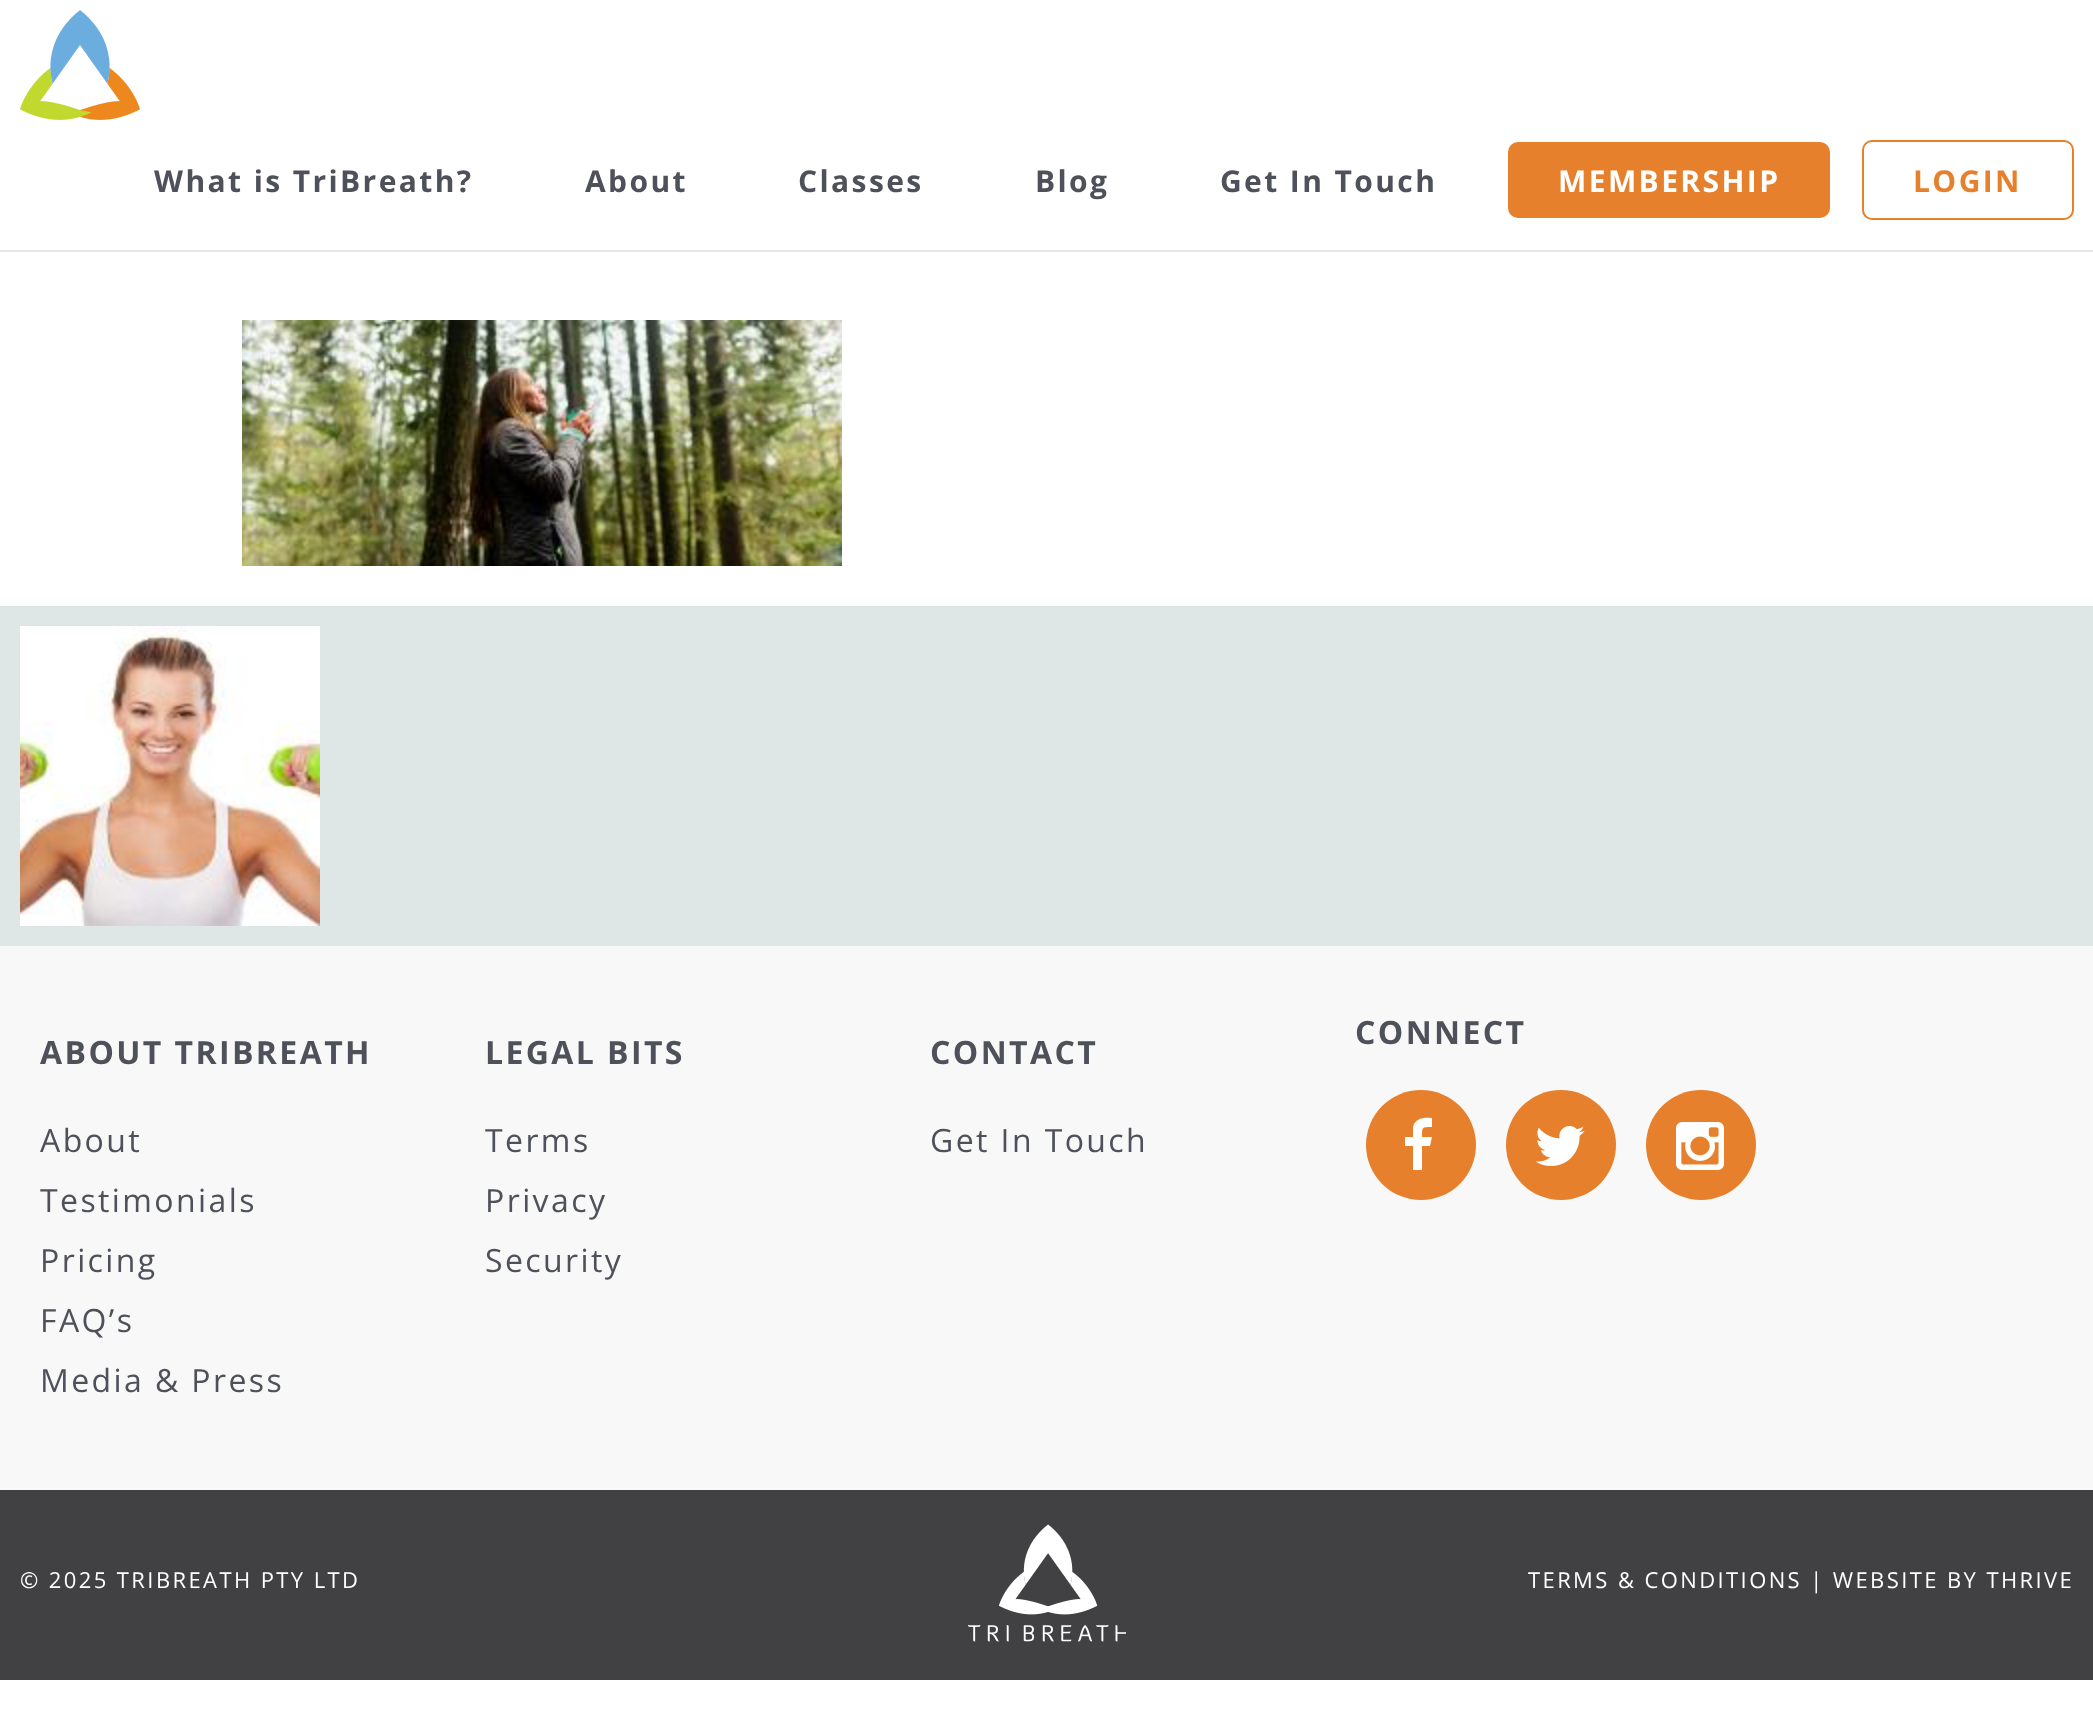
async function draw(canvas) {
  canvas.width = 2093;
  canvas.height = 1716;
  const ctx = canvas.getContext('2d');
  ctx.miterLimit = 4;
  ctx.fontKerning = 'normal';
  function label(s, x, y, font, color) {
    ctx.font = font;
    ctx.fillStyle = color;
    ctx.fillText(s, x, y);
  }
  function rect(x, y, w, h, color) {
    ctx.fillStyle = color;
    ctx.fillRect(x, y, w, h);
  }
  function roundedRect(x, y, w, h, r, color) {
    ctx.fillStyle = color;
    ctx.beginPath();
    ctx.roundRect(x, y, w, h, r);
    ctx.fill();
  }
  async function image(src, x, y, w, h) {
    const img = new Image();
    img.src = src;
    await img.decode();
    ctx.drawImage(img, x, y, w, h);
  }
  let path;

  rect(0, 0, 2093, 1716, '#fff');
  rect(0, 250, 2093, 2, '#e8e8e8');
  await image('assets/img1.png', 20, 10, 120, 110);
  ctx.letterSpacing = '2.4px';
  label('What is TriBreath?', 154, 192, 'bold 30px Open Sans', '#4e515a');
  label('About', 585, 192, 'bold 30px Open Sans', '#4e515a');
  label('Classes', 798, 192, 'bold 30px Open Sans', '#4e515a');
  label('Blog', 1035, 192, 'bold 30px Open Sans', '#4e515a');
  label('Get In Touch', 1220, 192, 'bold 30px Open Sans', '#4e515a');
  roundedRect(1508, 142, 322, 76, 10, '#e7802c');
  label('MEMBERSHIP', 1558, 192, 'bold 30px Open Sans', '#fff');
  ctx.beginPath();
  ctx.roundRect(1863, 141, 210, 78, 9);
  ctx.strokeStyle = '#e7802c';
  ctx.lineWidth = 2;
  ctx.stroke();
  label('LOGIN', 1913, 192, 'bold 30px Open Sans', '#e7802c');
  await image('assets/img2.png', 242, 320, 600, 246);
  rect(0, 606, 2093, 340, '#dfe6e6');
  await image('assets/img3.png', 20, 626, 300, 300);
  rect(0, 946, 2093, 544, '#f9f8f8');
  label('CONNECT', 1355, 1044, 'bold 32px Open Sans', '#4e515a');
  ctx.fillStyle = '#e7802c';
  ctx.beginPath();
  ctx.arc(1421, 1145, 55, 0, 2 * Math.PI);
  ctx.fill();
  ctx.fillStyle = '#fff';
  path = new Path2D('M1432 1118V1127C1422 1127 1422 1127 1422 1137H1432L1430 1146H1422V1170H1413V1146H1405V1137H1413V1127C1415 1118 1424 1117 1432 1118Z');
  ctx.fill(path);
  ctx.fillStyle = '#e7802c';
  ctx.beginPath();
  ctx.arc(1561, 1145, 55, 0, 2 * Math.PI);
  ctx.fill();
  await image('assets/img4.png', 1535, 1126, 50, 40);
  ctx.beginPath();
  ctx.arc(1701, 1145, 55, 0, 2 * Math.PI);
  ctx.fill();
  await image('assets/img5.png', 1676, 1122, 48, 48);
  label('ABOUT TRIBREATH', 40, 1064, 'bold 32px Open Sans', '#4e515a');
  label('About', 40, 1152, '32px Open Sans', '#4e515a');
  label('Testimonials', 40, 1212, '32px Open Sans', '#4e515a');
  label('Pricing', 40, 1272, '32px Open Sans', '#4e515a');
  label('FAQ’s', 40, 1332, '32px Open Sans', '#4e515a');
  label('Media & Press', 40, 1392, '32px Open Sans', '#4e515a');
  label('LEGAL BITS', 485, 1064, 'bold 32px Open Sans', '#4e515a');
  label('Terms', 485, 1152, '32px Open Sans', '#4e515a');
  label('Privacy', 485, 1212, '32px Open Sans', '#4e515a');
  label('Security', 485, 1272, '32px Open Sans', '#4e515a');
  label('CONTACT', 930, 1064, 'bold 32px Open Sans', '#4e515a');
  label('Get In Touch', 930, 1152, '32px Open Sans', '#4e515a');
  rect(0, 1490, 2093, 190, '#414042');
  label('© 2025 TRIBREATH PTY LTD', 20, 1588, '22px Open Sans', '#fff');
  await image('assets/img6.png', 968, 1524, 158, 118);
  label('TERMS & CONDITIONS | WEBSITE BY THRIVE', 1528, 1588, '22px Open Sans', '#fff');
}

draw(document.querySelector('canvas'));
